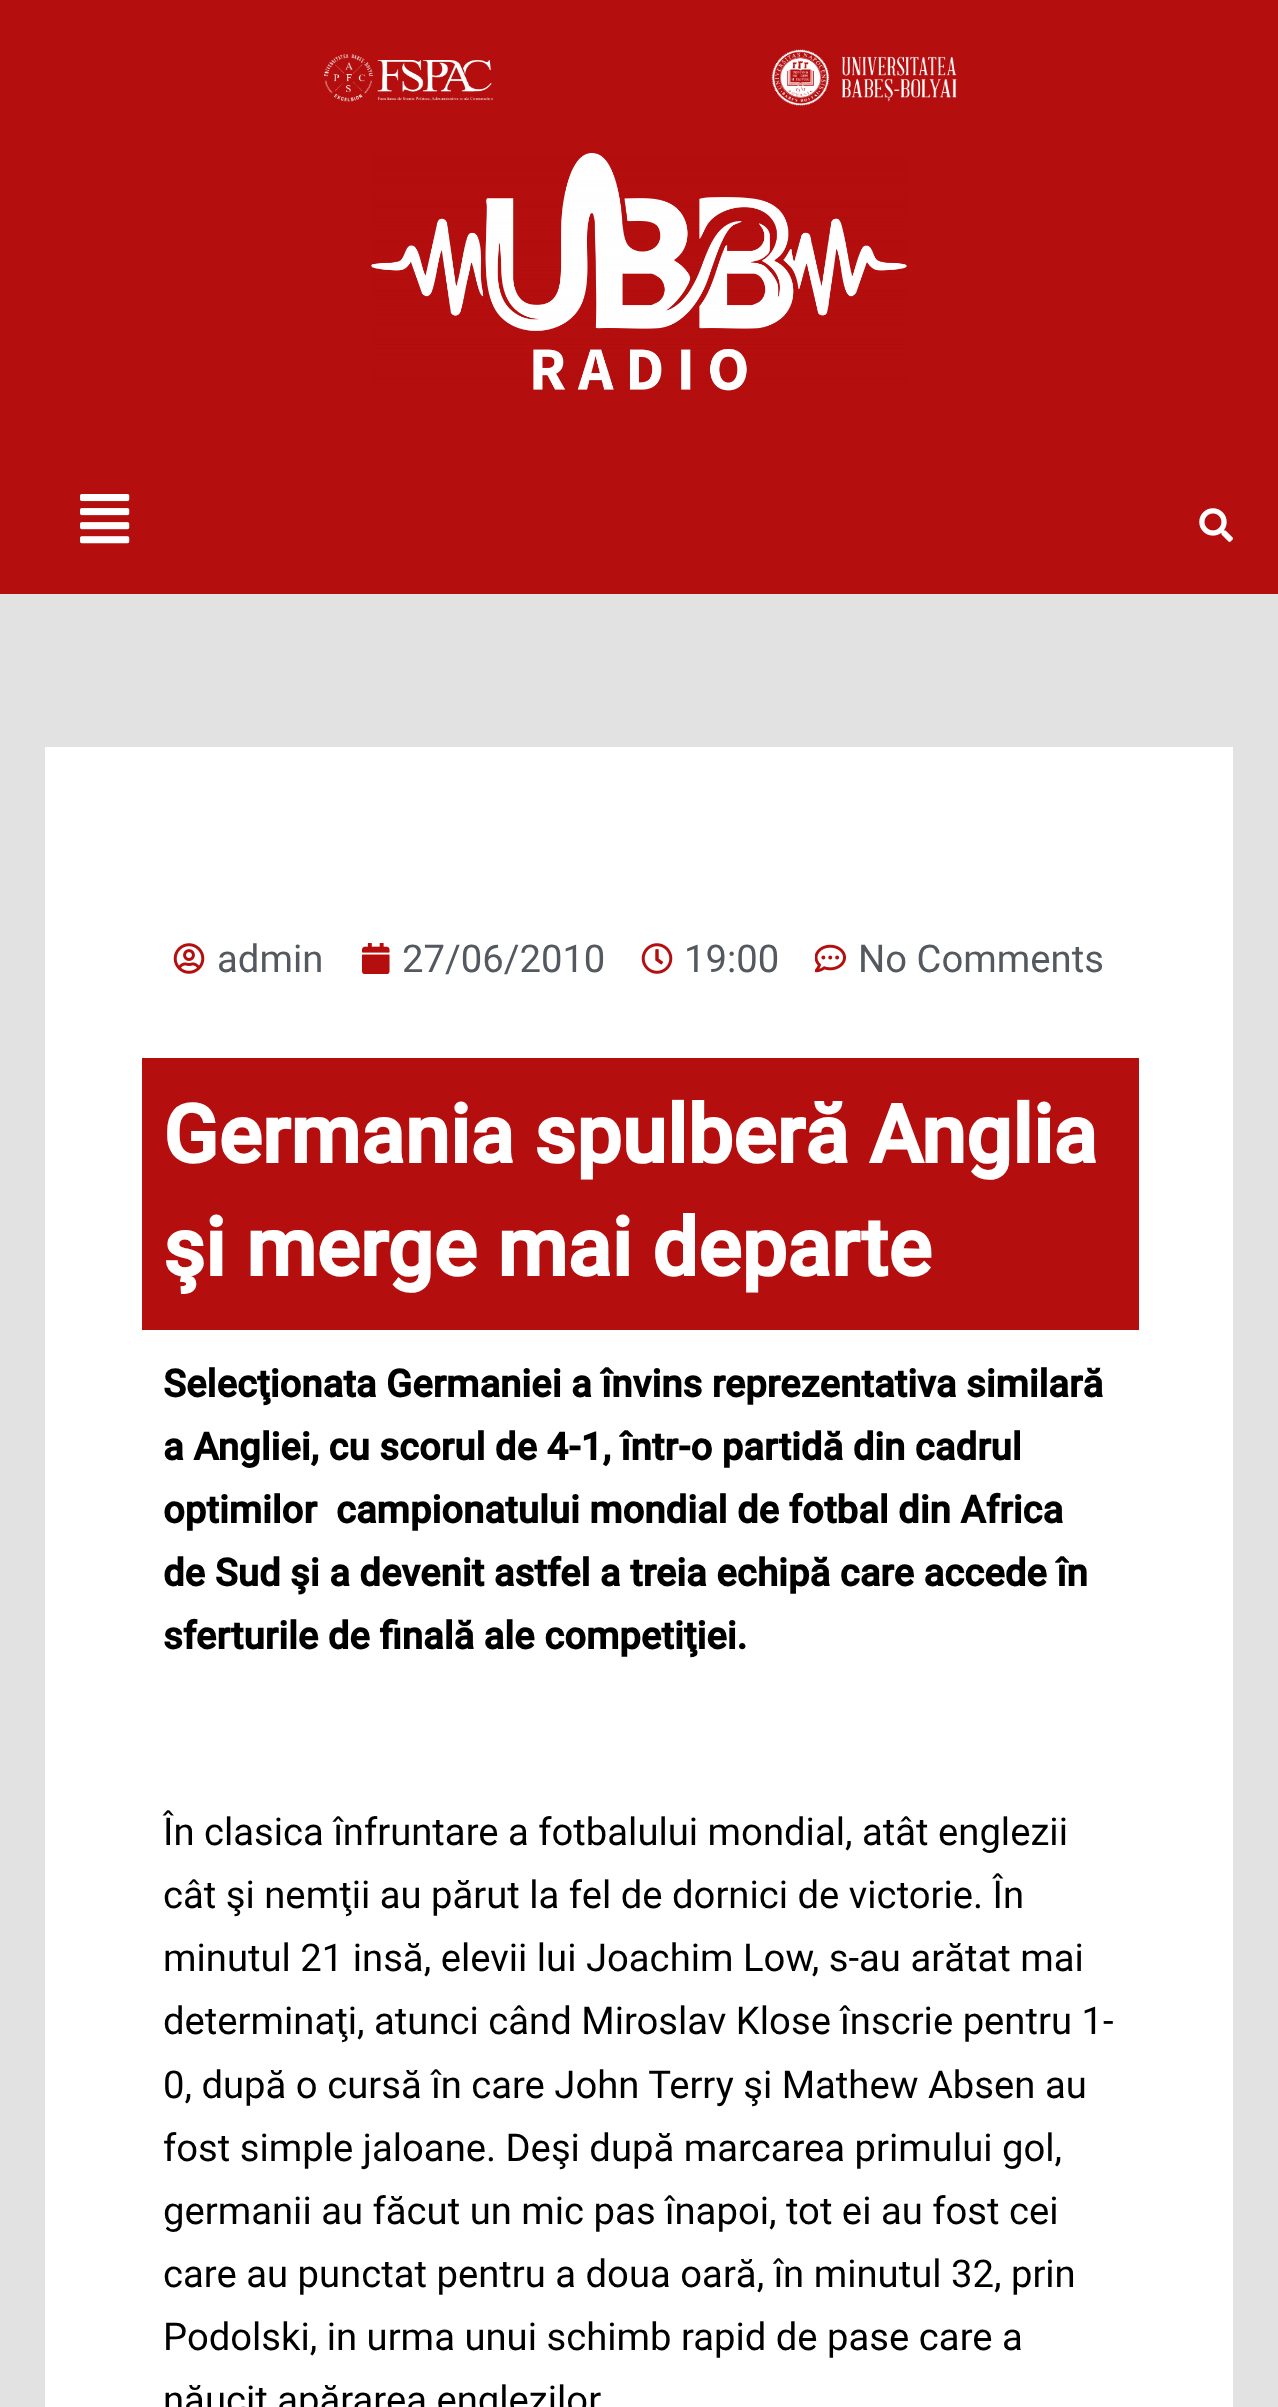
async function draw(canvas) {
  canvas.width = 1278;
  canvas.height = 2407;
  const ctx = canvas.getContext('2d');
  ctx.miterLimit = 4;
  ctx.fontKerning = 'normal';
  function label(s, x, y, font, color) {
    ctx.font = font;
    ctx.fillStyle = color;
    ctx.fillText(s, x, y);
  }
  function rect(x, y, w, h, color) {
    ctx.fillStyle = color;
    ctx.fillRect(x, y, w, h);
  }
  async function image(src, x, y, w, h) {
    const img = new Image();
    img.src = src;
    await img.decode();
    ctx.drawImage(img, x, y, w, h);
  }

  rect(0, 0, 1278, 2407, '#e2e2e2');
  rect(0, 0, 1278, 594, '#b40e0e');
  await image('assets/img1.png', 324, 54, 169, 48);
  await image('assets/img2.png', 771, 49, 186, 57);
  await image('assets/img3.png', 371, 153, 536, 238);
  await image('assets/img4.png', 80, 494, 50, 50);
  await image('assets/img5.png', 1199, 508, 34, 34);
  rect(45, 747, 1188, 1660, '#fff');
  await image('assets/img6.png', 173, 943, 32, 31);
  label('admin', 217, 972, '38.25px Roboto', '#54595f');
  await image('assets/img7.png', 361, 943, 29, 31);
  label('27/06/2010', 402, 972, '38.25px Roboto', '#54595f');
  await image('assets/img8.png', 641, 943, 32, 31);
  label('19:00', 684, 972, '38.25px Roboto', '#54595f');
  await image('assets/img9.png', 815, 944, 31, 29);
  label('No Comments', 858, 972, '38.25px Roboto', '#54595f');
  rect(142, 1058, 997, 272, '#b40e0e');
  label('Germania spulberă Anglia', 163, 1163, 'bold 81px Roboto', '#fff');
  label('şi merge mai departe', 163, 1276, 'bold 81px Roboto', '#fff');
  label('Selecţionata Germaniei a învins reprezentativa similară', 163, 1397, 'bold 38.25px Roboto', '#000');
  label('a Angliei, cu scorul de 4-1, într-o partidă din cadrul', 163, 1460, 'bold 38.25px Roboto', '#000');
  label('optimilor  campionatului mondial de fotbal din Africa', 163, 1523, 'bold 38.25px Roboto', '#000');
  label('de Sud şi a devenit astfel a treia echipă care accede în', 163, 1586, 'bold 38.25px Roboto', '#000');
  label('sferturile de finală ale competiţiei.', 163, 1649, 'bold 38.25px Roboto', '#000');
  label('În clasica înfruntare a fotbalului mondial, atât englezii', 163, 1845, '38.25px Roboto', '#000');
  label('cât şi nemţii au părut la fel de dornici de victorie. În', 163, 1908, '38.25px Roboto', '#000');
  label('minutul 21 insă, elevii lui Joachim Low, s-au arătat mai', 163, 1971, '38.25px Roboto', '#000');
  label('determinaţi, atunci când Miroslav Klose înscrie pentru 1-', 163, 2034, '38.25px Roboto', '#000');
  label('0, după o cursă în care John Terry şi Mathew Absen au', 163, 2098, '38.25px Roboto', '#000');
  label('fost simple jaloane. Deşi după marcarea primului gol,', 163, 2161, '38.25px Roboto', '#000');
  label('germanii au făcut un mic pas înapoi, tot ei au fost cei', 163, 2224, '38.25px Roboto', '#000');
  label('care au punctat pentru a doua oară, în minutul 32, prin', 163, 2287, '38.25px Roboto', '#000');
  label('Podolski, in urma unui schimb rapid de pase care a', 163, 2350, '38.25px Roboto', '#000');
  label('năucit apărarea englezilor.', 163, 2413, '38.25px Roboto', '#000');
}

draw(document.querySelector('canvas'));
